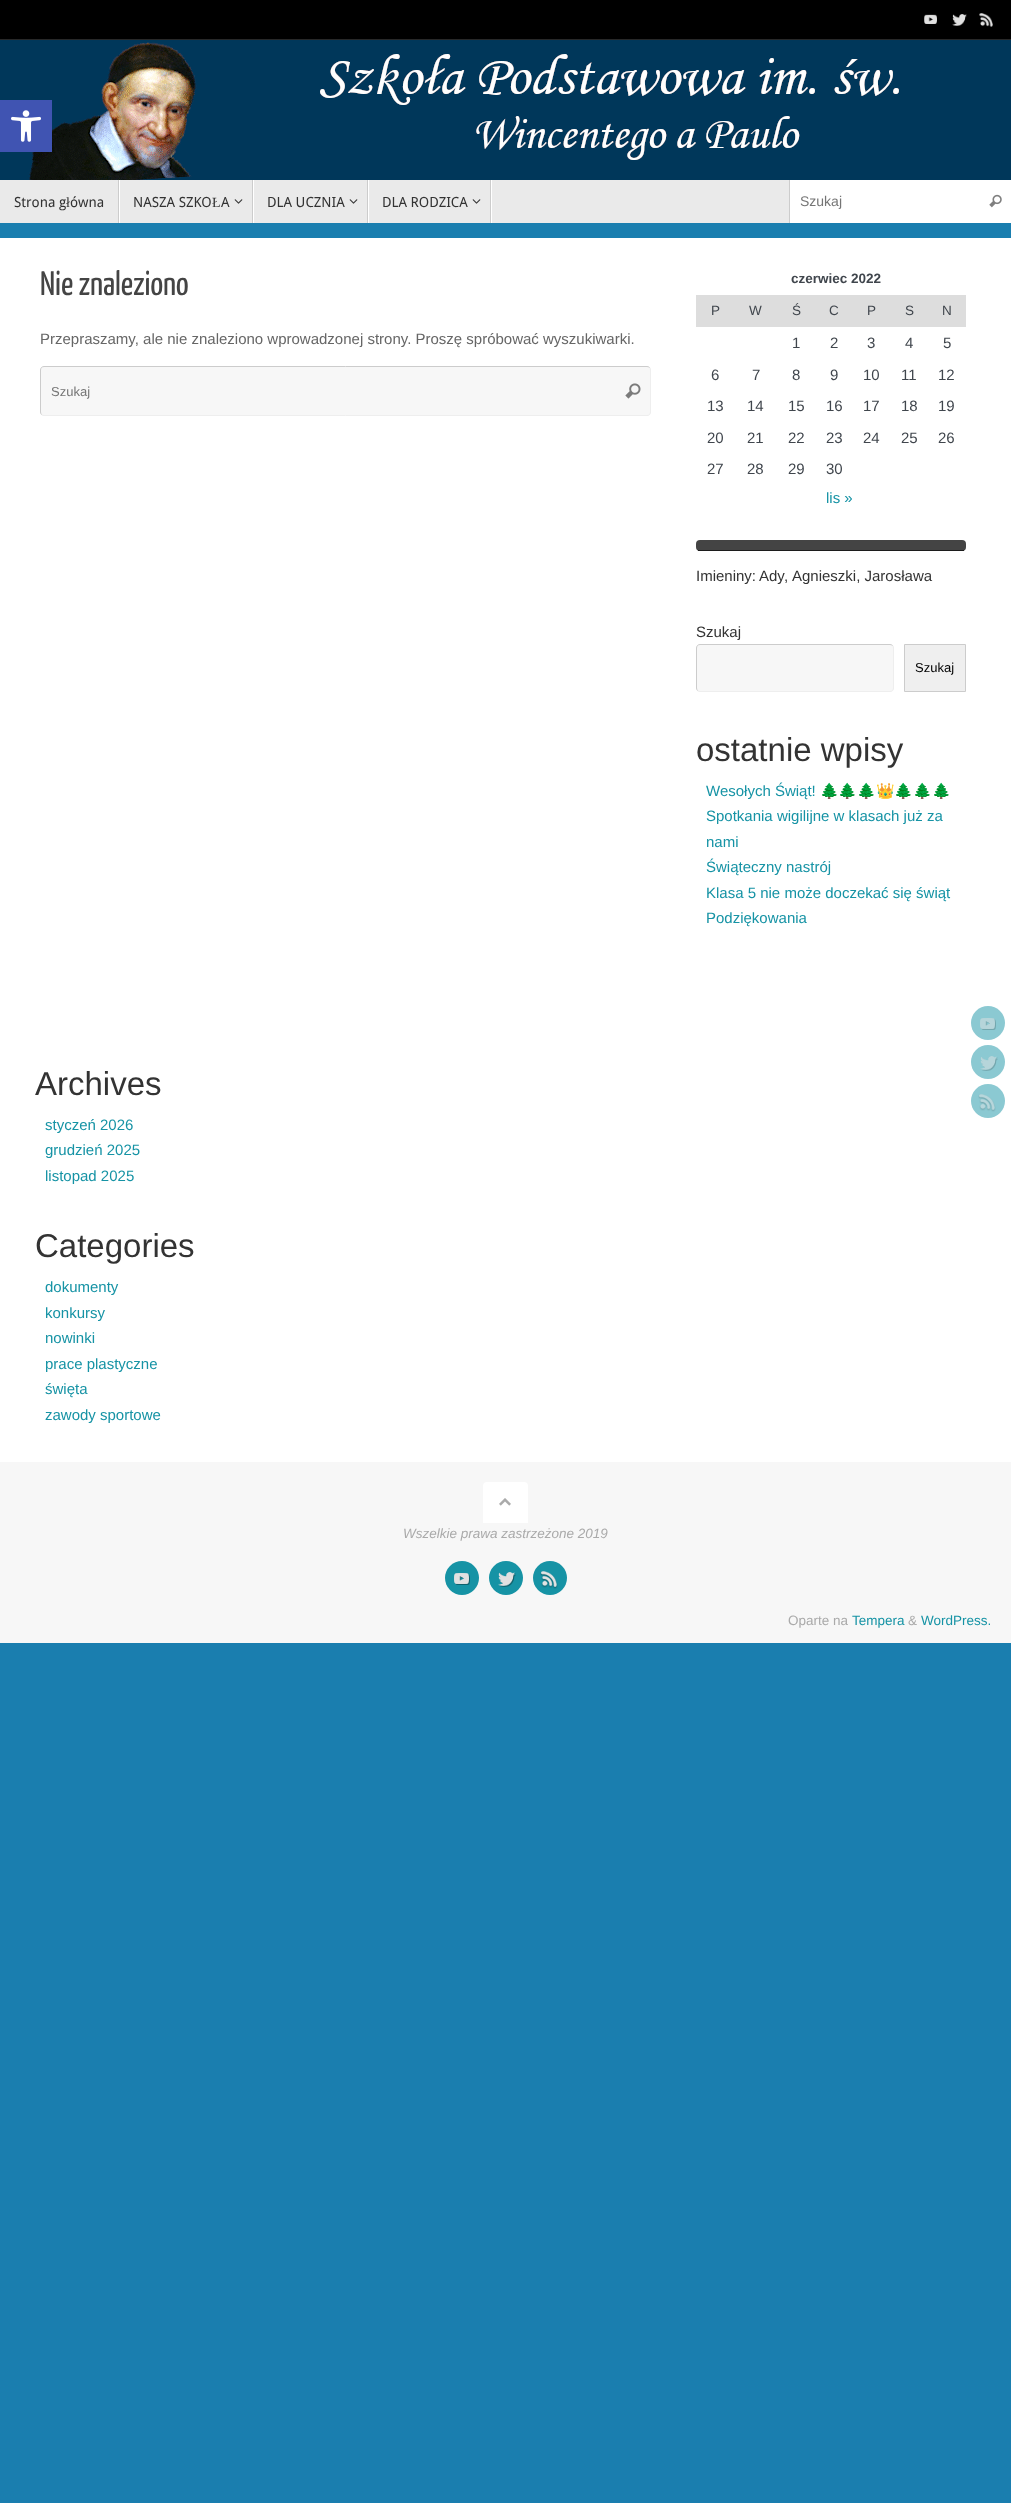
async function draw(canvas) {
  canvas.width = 1011;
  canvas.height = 2503;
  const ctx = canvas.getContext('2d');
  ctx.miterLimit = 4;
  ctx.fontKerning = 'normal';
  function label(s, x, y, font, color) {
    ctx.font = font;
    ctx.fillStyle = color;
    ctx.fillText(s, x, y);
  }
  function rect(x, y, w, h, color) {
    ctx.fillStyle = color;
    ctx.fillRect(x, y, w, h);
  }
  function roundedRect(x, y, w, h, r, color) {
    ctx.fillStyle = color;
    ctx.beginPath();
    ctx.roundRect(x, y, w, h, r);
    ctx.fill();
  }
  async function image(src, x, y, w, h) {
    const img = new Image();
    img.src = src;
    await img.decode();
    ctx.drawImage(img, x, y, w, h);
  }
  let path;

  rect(0, 0, 1011, 2503, '#1a7eaf');
  await image('assets/img5.png', 0, 40, 1011, 140);
  rect(0, 100, 52, 52, '#4054b2');
  await image('assets/img1.png', 11, 110, 30, 32);
  rect(0, 0, 1011, 39, '#000');
  rect(0, 39, 1011, 1, '#282828');
  await image('assets/img2.png', 924, 14, 13, 10);
  await image('assets/img3.png', 952, 14, 15, 12);
  await image('assets/img4.png', 979, 13, 14, 14);
  rect(0, 180, 789, 43, '#eaeaea');
  rect(119, 180, 1, 43, '#fff');
  rect(118, 180, 1, 43, '#ccc');
  label('Strona g', 14, 207, '14px Droid Sans', '#333');
  label('ł', 66, 207, '14px Liberation Serif', '#333');
  label('ówna', 70, 207, '14px Droid Sans', '#333');
  rect(253, 180, 1, 43, '#fff');
  rect(252, 180, 1, 43, '#ccc');
  label('NASZA SZKO', 133, 207, '14px Droid Sans', '#333');
  label('Ł', 212, 207, '14px Liberation Serif', '#333');
  label('A', 221, 207, '14px Droid Sans', '#333');
  await image('assets/img6.png', 234, 199, 9, 5);
  rect(368, 180, 1, 43, '#fff');
  rect(367, 180, 1, 43, '#ccc');
  label('DLA UCZNIA', 267, 207, '14px Droid Sans', '#333');
  await image('assets/img6.png', 349, 199, 9, 5);
  rect(491, 180, 1, 43, '#fff');
  rect(490, 180, 1, 43, '#ccc');
  label('DLA RODZICA', 382, 207, '14px Droid Sans', '#333');
  await image('assets/img6.png', 472, 199, 9, 5);
  rect(790, 180, 221, 43, '#fff');
  rect(789, 180, 1, 43, '#ccc');
  label('Szukaj', 800, 206, '14px Liberation Sans', '#757575');
  await image('assets/img7.png', 989, 194, 13, 14);
  rect(0, 238, 1011, 1224, '#fff');
  label('Nie znaleziono', 40, 295, '34px Yanone Kaffeesatz', '#444');
  label('Przepraszamy, ale nie znaleziono wprowadzonej strony. Proszę spróbować wyszukiwarki.', 40, 344, '15px Liberation Sans', '#666');
  roundedRect(40, 366, 611, 50, 4, '#f7f7f7');
  path = new Path2D('M649.5 367.5C650 368 650.5 369 650.5 370V412C650.5 413 650 414 649.5 414.5C649 415 648 415.5 647 415.5H44C43 415.5 42 415 41.5 414.5');
  ctx.strokeStyle = '#eee';
  ctx.stroke(path);
  path = new Path2D('M41.5 414.5C41 414 40.5 413 40.5 412V370C40.5 369 41 368 41.5 367.5C42 367 43 366.5 44 366.5H647C648 366.5 649 367 649.5 367.5');
  ctx.strokeStyle = '#ccc';
  ctx.stroke(path);
  label('Szukaj', 51, 396, '13px Liberation Sans', '#757575');
  await image('assets/img8.png', 625, 383, 16, 16);
  label('czerwiec 2022', 791, 283, 'bold 13.5px Liberation Sans', '#40464d');
  rect(697, 296, 37, 30, '#ddd');
  rect(734, 296, 232, 31, '#ddd');
  rect(696, 326, 39, 1, '#ddd');
  rect(696, 295, 270, 1, '#ddd');
  rect(696, 295, 1, 32, '#ddd');
  label('P', 711, 315, '13.5px Liberation Sans', '#40464d');
  label('W', 749, 315, '13.5px Liberation Sans', '#40464d');
  label('Ś', 792, 315, '13.5px Liberation Sans', '#40464d');
  label('C', 829, 315, '13.5px Liberation Sans', '#40464d');
  label('P', 867, 315, '13.5px Liberation Sans', '#40464d');
  label('S', 905, 315, '13.5px Liberation Sans', '#40464d');
  label('N', 942, 315, '13.5px Liberation Sans', '#40464d');
  label('1', 792, 348, '15px Liberation Sans', '#40464d');
  label('2', 830, 348, '15px Liberation Sans', '#40464d');
  label('3', 867, 348, '15px Liberation Sans', '#40464d');
  label('4', 905, 348, '15px Liberation Sans', '#40464d');
  label('5', 943, 348, '15px Liberation Sans', '#40464d');
  label('6', 711, 380, '15px Liberation Sans', '#40464d');
  label('7', 752, 380, '15px Liberation Sans', '#40464d');
  label('8', 792, 380, '15px Liberation Sans', '#40464d');
  label('9', 830, 380, '15px Liberation Sans', '#40464d');
  label('10', 863, 380, '15px Liberation Sans', '#40464d');
  label('11', 901, 380, '15px Liberation Sans', '#40464d');
  label('12', 938, 380, '15px Liberation Sans', '#40464d');
  label('13', 707, 411, '15px Liberation Sans', '#40464d');
  label('14', 747, 411, '15px Liberation Sans', '#40464d');
  label('15', 788, 411, '15px Liberation Sans', '#40464d');
  label('16', 826, 411, '15px Liberation Sans', '#40464d');
  label('17', 863, 411, '15px Liberation Sans', '#40464d');
  label('18', 901, 411, '15px Liberation Sans', '#40464d');
  label('19', 938, 411, '15px Liberation Sans', '#40464d');
  label('20', 707, 443, '15px Liberation Sans', '#40464d');
  label('21', 747, 443, '15px Liberation Sans', '#40464d');
  label('22', 788, 443, '15px Liberation Sans', '#40464d');
  label('23', 826, 443, '15px Liberation Sans', '#40464d');
  label('24', 863, 443, '15px Liberation Sans', '#40464d');
  label('25', 901, 443, '15px Liberation Sans', '#40464d');
  label('26', 938, 443, '15px Liberation Sans', '#40464d');
  label('27', 707, 474, '15px Liberation Sans', '#40464d');
  label('28', 747, 474, '15px Liberation Sans', '#40464d');
  label('29', 788, 474, '15px Liberation Sans', '#40464d');
  label('30', 826, 474, '15px Liberation Sans', '#40464d');
  label('lis »', 826, 503, '15px Liberation Sans', '#1693a5');
  roundedRect(696, 540, 270, 11, 4, '#444');
  rect(698, 550, 266, 1, '#1c1c1c');
  label('Imieniny:', 696, 581, '15px Liberation Sans', '#333');
  label('Ady', 759, 581, '15px Liberation Sans', '#333');
  label('Agnieszki, Jarosława', 792, 581, '15px Liberation Sans', '#333');
  label(',', 784, 581, '15px Liberation Sans', '#333');
  label('Szukaj', 696, 637, '15px Liberation Sans', '#333');
  roundedRect(696, 644, 198, 48, 4, '#f7f7f7');
  path = new Path2D('M892.5 645.5C893 646 893.5 647 893.5 648V688C893.5 689 893 690 892.5 690.5C892 691 891 691.5 890 691.5H700C699 691.5 698 691 697.5 690.5');
  ctx.strokeStyle = '#eee';
  ctx.stroke(path);
  path = new Path2D('M697.5 690.5C697 690 696.5 689 696.5 688V648C696.5 647 697 646 697.5 645.5C698 645 699 644.5 700 644.5H890C891 644.5 892 645 892.5 645.5');
  ctx.strokeStyle = '#ccc';
  ctx.stroke(path);
  ctx.fillStyle = '#efefef';
  ctx.beginPath();
  ctx.rect(904.5, 644.5, 61, 47);
  ctx.fill();
  ctx.stroke();
  label('Szukaj', 915, 672, '13px Liberation Sans', '#000');
  label('ostatnie wpisy', 696, 761, '33px Liberation Sans', '#333');
  label('Wesołych Świąt!', 706, 796, '15px Liberation Sans', '#1693a5');
  label('🌲🌲🌲👑🌲🌲🌲', 820, 796, '15px Noto Color Emoji', '#1693a5');
  label('Spotkania wigilijne w klasach już za', 706, 821, '15px Liberation Sans', '#1693a5');
  label('nami', 706, 847, '15px Liberation Sans', '#1693a5');
  label('Świąteczny nastrój', 706, 872, '15px Liberation Sans', '#1693a5');
  label('Klasa 5 nie może doczekać się świąt', 706, 898, '15px Liberation Sans', '#1693a5');
  label('Podziękowania', 706, 923, '15px Liberation Sans', '#1693a5');
  label('Archives', 35, 1095, '33px Liberation Sans', '#333');
  label('styczeń 2026', 45, 1130, '15px Liberation Sans', '#1693a5');
  label('grudzień 2025', 45, 1155, '15px Liberation Sans', '#1693a5');
  label('listopad 2025', 45, 1181, '15px Liberation Sans', '#1693a5');
  label('Categories', 35, 1257, '33px Liberation Sans', '#333');
  label('dokumenty', 45, 1292, '15px Liberation Sans', '#1693a5');
  label('konkursy', 45, 1318, '15px Liberation Sans', '#1693a5');
  label('nowinki', 45, 1343, '15px Liberation Sans', '#1693a5');
  label('prace plastyczne', 45, 1369, '15px Liberation Sans', '#1693a5');
  label('święta', 45, 1394, '15px Liberation Sans', '#1693a5');
  label('zawody sportowe', 45, 1420, '15px Liberation Sans', '#1693a5');
  rect(0, 1462, 1011, 181, '#f7f7f7');
  ctx.fillStyle = '#fff';
  ctx.beginPath();
  ctx.roundRect(483, 1482, 45, 41, [4, 4, 0, 0]);
  ctx.fill();
  await image('assets/img9.png', 499, 1498, 12, 8);
  label('Wszelkie prawa zastrzeżone 2019', 403, 1538, 'italic 13.5px Liberation Sans', '#aaa');
  ctx.fillStyle = '#1693a5';
  ctx.beginPath();
  ctx.arc(462, 1578, 17, 0, 2 * Math.PI);
  ctx.fill();
  await image('assets/img10.png', 454, 1573, 16, 12);
  ctx.beginPath();
  ctx.arc(506, 1578, 17, 0, 2 * Math.PI);
  ctx.fill();
  await image('assets/img11.png', 498, 1572, 18, 15);
  ctx.beginPath();
  ctx.arc(550, 1578, 17, 0, 2 * Math.PI);
  ctx.fill();
  await image('assets/img12.png', 540, 1571, 18, 18);
  label('Oparte na', 788, 1625, '13.5px Liberation Sans', '#aaa');
  label('Tempera', 852, 1625, '13.5px Liberation Sans', '#1693a5');
  label('&', 908, 1625, '13.5px Liberation Sans', '#aaa');
  label('WordPress.', 921, 1625, '13.5px Liberation Sans', '#1693a5');
  ctx.fillStyle = '#8bc9d2';
  ctx.beginPath();
  ctx.arc(988, 1023, 17, 0, 2 * Math.PI);
  ctx.fill();
  await image('assets/img13.png', 980, 1018, 16, 12);
  ctx.beginPath();
  ctx.arc(988, 1062, 17, 0, 2 * Math.PI);
  ctx.fill();
  await image('assets/img14.png', 980, 1056, 18, 15);
  ctx.beginPath();
  ctx.arc(988, 1101, 17, 0, 2 * Math.PI);
  ctx.fill();
  await image('assets/img15.png', 978, 1094, 18, 18);
}

draw(document.querySelector('canvas'));
